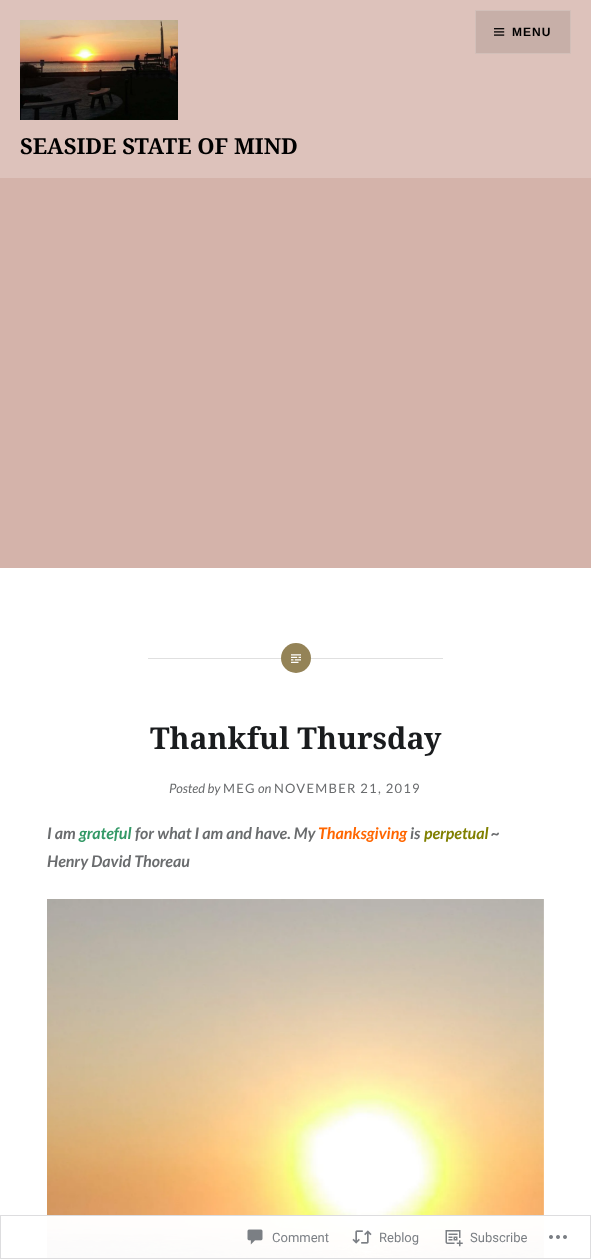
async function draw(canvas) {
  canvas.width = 591;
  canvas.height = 1259;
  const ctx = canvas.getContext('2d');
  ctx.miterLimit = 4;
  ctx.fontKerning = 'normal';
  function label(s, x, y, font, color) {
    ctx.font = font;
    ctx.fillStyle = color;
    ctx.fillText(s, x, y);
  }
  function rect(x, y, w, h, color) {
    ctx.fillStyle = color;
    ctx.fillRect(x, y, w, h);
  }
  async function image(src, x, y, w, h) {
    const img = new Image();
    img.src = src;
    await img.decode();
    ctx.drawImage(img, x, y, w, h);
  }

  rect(0, 0, 591, 1259, '#fff');
  rect(0, 0, 591, 178, '#ddc2bb');
  ctx.fillStyle = '#c7afa8';
  ctx.beginPath();
  ctx.rect(475.5, 10.5, 95, 43);
  ctx.fill();
  ctx.strokeStyle = '#d2bfb9';
  ctx.stroke();
  await image('assets/img1.png', 494, 28, 11, 8);
  ctx.letterSpacing = '1px';
  label('MENU', 512, 36, 'bold 12px Liberation Sans', '#000');
  await image('assets/img2.png', 20, 20, 158, 100);
  ctx.letterSpacing = '0px';
  label('SEASIDE STATE OF MIND', 20, 154, 'bold 22px Noto Serif', '#000');
  rect(0, 178, 591, 390, '#d4b3aa');
  rect(148, 658, 295, 1, '#e0e0e0');
  ctx.fillStyle = '#948357';
  ctx.beginPath();
  ctx.arc(296, 658, 15, 0, 2 * Math.PI);
  ctx.fill();
  await image('assets/img3.png', 291, 654, 10, 9);
  label('Thankful Thursday', 150, 749, 'bold 30px Noto Serif', '#1a1c1e');
  label('Posted by', 169, 793, 'italic 13px Lato', '#6a6c6e');
  ctx.letterSpacing = '1.25px';
  label('MEG', 223, 793, '13px Lato', '#6a6c6e');
  ctx.letterSpacing = '0px';
  label('on', 258, 793, 'italic 13px Lato', '#6a6c6e');
  ctx.letterSpacing = '1.25px';
  label('NOVEMBER 21, 2019', 274, 793, '13px Lato', '#6a6c6e');
  ctx.letterSpacing = '0px';
  label('I am', 47, 839, 'italic bold 16px Lato', '#6a6c6e');
  label('grateful', 79, 839, 'italic bold 16px Lato', '#396');
  label('for what I am and have. My', 135, 839, 'italic bold 16px Lato', '#6a6c6e');
  label('Thanksgiving', 318, 839, 'italic bold 16px Lato', '#f60');
  label('is', 410, 839, 'italic bold 16px Lato', '#6a6c6e');
  label('perpetual', 424, 839, 'italic bold 16px Lato', '#808000');
  label('~', 491, 839, 'italic bold 16px Lato', '#6a6c6e');
  label('Henry David Thoreau', 47, 867, 'italic bold 16px Lato', '#6a6c6e');
  await image('assets/img4.png', 47, 899, 497, 360);
  rect(47, 1215, 497, 44, '#fffffffa');
  ctx.strokeStyle = '#dcdcdefa';
  ctx.strokeRect(0.5, 1215.5, 590, 43);
  await image('assets/img5.png', 247, 1229, 16, 16);
  label('Comment', 272, 1242, '13px Roboto', '#7b7f84');
  await image('assets/img6.png', 352, 1230, 20, 14);
  label('Reblog', 379, 1242, '13px Roboto', '#7b7f84');
  await image('assets/img7.png', 445, 1230, 18, 17);
  label('Subscribe', 470, 1242, '13px Roboto', '#7b7f84');
  await image('assets/img8.png', 549, 1235, 18, 4);
}

draw(document.querySelector('canvas'));
